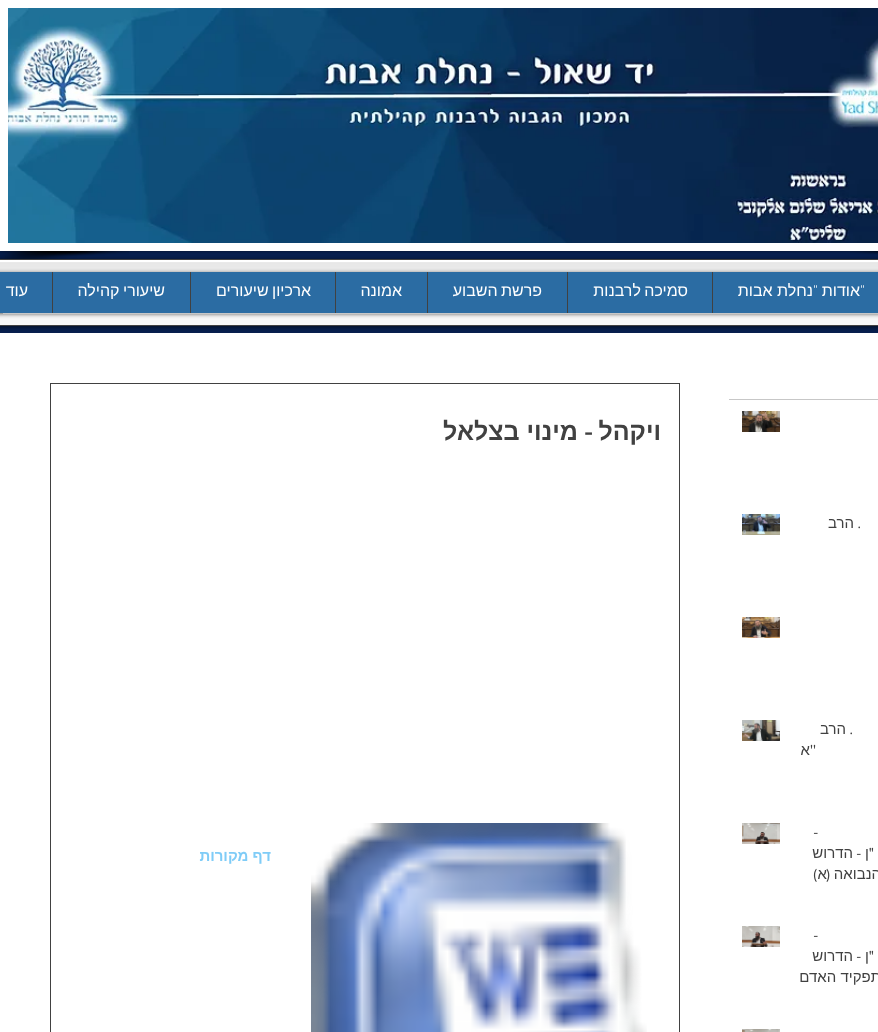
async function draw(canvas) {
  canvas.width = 878;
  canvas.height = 1032;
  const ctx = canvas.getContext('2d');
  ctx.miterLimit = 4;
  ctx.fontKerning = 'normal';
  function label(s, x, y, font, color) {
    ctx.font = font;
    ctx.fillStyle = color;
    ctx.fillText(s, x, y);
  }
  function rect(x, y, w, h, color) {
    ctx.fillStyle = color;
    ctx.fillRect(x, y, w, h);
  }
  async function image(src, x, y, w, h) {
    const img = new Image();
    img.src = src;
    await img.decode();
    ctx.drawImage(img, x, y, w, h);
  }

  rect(0, 0, 878, 1032, '#071f4e');
  ctx.fillStyle = '#00000080';
  ctx.filter = 'blur(1.5px)';
  ctx.beginPath();
  ctx.rect(0, 0, 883, 251);
  ctx.fill();
  ctx.filter = 'none';
  rect(0, 0, 878, 251, '#fff');
  await image('assets/img1.png', 8, 8, 870, 235);
  await image('assets/img2.png', 850, 251, 28, 4);
  await image('assets/img3.png', 0, 251, 129, 8);
  ctx.fillStyle = '#00000099';
  ctx.filter = 'blur(2px)';
  ctx.beginPath();
  ctx.roundRect(-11, 260, 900, 67, 5);
  ctx.fill();
  ctx.filter = 'none';
  rect(0, 260, 878, 65, '#fff');
  await image('assets/img4.png', 0, 262, 878, 63);
  ctx.strokeStyle = '#414141';
  ctx.strokeRect(-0.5, 259.5, 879, 66);
  ctx.fillStyle = '#00000099';
  ctx.filter = 'blur(2px)';
  ctx.beginPath();
  ctx.roundRect(-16, 273, 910, 41, 10);
  ctx.fill();
  ctx.filter = 'none';
  rect(0, 272, 878, 41, '#2b6ca3');
  rect(712, 272, 1, 41, '#414141');
  ctx.direction = 'rtl';
  label('"', 865, 296, '300 16px "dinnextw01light"', '#fff');
  label('אודות', 860, 296, '16px Liberation Sans', '#fff');
  label('"', 818, 296, '300 16px "dinnextw01light"', '#fff');
  label('נחלת אבות', 813, 296, '16px Liberation Sans', '#fff');
  rect(567, 272, 1, 41, '#414141');
  ctx.wordSpacing = '-1px';
  label('סמיכה לרבנות', 688, 296, '16px Liberation Sans', '#fff');
  rect(427, 272, 1, 41, '#414141');
  label('פרשת השבוע', 542, 296, '16px Liberation Sans', '#fff');
  rect(335, 272, 1, 41, '#414141');
  ctx.wordSpacing = '0px';
  label('אמונה', 402, 296, '16px Liberation Sans', '#fff');
  rect(190, 272, 1, 41, '#414141');
  ctx.wordSpacing = '-1px';
  label('ארכיון שיעורים', 311, 296, '16px Liberation Sans', '#fff');
  rect(52, 272, 1, 41, '#414141');
  label('שיעורי קהילה', 165, 296, '16px Liberation Sans', '#fff');
  ctx.wordSpacing = '0px';
  label('עוד', 28, 296, '16px Liberation Sans', '#fff');
  rect(3, 313, 875, 1, '#c7c7c7');
  rect(0, 333, 878, 699, '#fff');
  rect(729, 399, 149, 1, '#c7c7c7');
  await image('assets/img5.png', 742, 411, 38, 21);
  label('.', 861, 528, '15px "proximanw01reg"', '#414141');
  label('הרב', 854, 528, '15px Liberation Sans', '#414141');
  await image('assets/img6.png', 742, 514, 38, 21);
  await image('assets/img7.png', 742, 617, 38, 21);
  label('.', 853, 734, '15px "proximanw01reg"', '#414141');
  label('הרב', 846, 734, '15px Liberation Sans', '#414141');
  label('\'\'', 816, 755, '15px "proximanw01reg"', '#414141');
  label('א', 810, 755, '15px Liberation Sans', '#414141');
  await image('assets/img8.png', 742, 720, 38, 21);
  label('-', 818, 837, '15px "proximanw01reg"', '#414141');
  label('"', 874, 858, '15px "proximanw01reg"', '#414141');
  label('ן', 869, 858, '15px Liberation Sans', '#414141');
  label('-', 861, 858, '15px "proximanw01reg"', '#414141');
  label('הדרוש', 853, 858, '15px Liberation Sans', '#414141');
  label('הנבואה', 881, 879, '15px Liberation Sans', '#414141');
  label('(', 830, 879, '15px "proximanw01reg"', '#414141');
  label('א', 827, 879, '15px Liberation Sans', '#414141');
  label(')', 817, 879, '15px "proximanw01reg"', '#414141');
  await image('assets/img9.png', 742, 823, 38, 21);
  label('-', 818, 940, '15px "proximanw01reg"', '#414141');
  label('"', 874, 961, '15px "proximanw01reg"', '#414141');
  label('ן', 869, 961, '15px Liberation Sans', '#414141');
  label('-', 861, 961, '15px "proximanw01reg"', '#414141');
  label('הדרוש', 853, 961, '15px Liberation Sans', '#414141');
  label('תפקיד האדם', 881, 982, '15px Liberation Sans', '#414141');
  await image('assets/img10.png', 742, 926, 38, 21);
  await image('assets/img11.png', 742, 1029, 38, 3);
  ctx.strokeRect(50.5, 383.5, 629, 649);
  label('ויקהל', 661, 440, 'bold 25px Liberation Sans', '#414141');
  label('-', 592, 440, 'bold 25px "proximanw01reg"', '#414141');
  label('מינוי בצלאל', 578, 440, 'bold 25px Liberation Sans', '#414141');
  await image('assets/img12.png', 311, 823, 336, 209);
  label('דף מקורות', 271, 861, 'bold 15px Liberation Sans', '#7fccf7');
}

draw(document.querySelector('canvas'));
